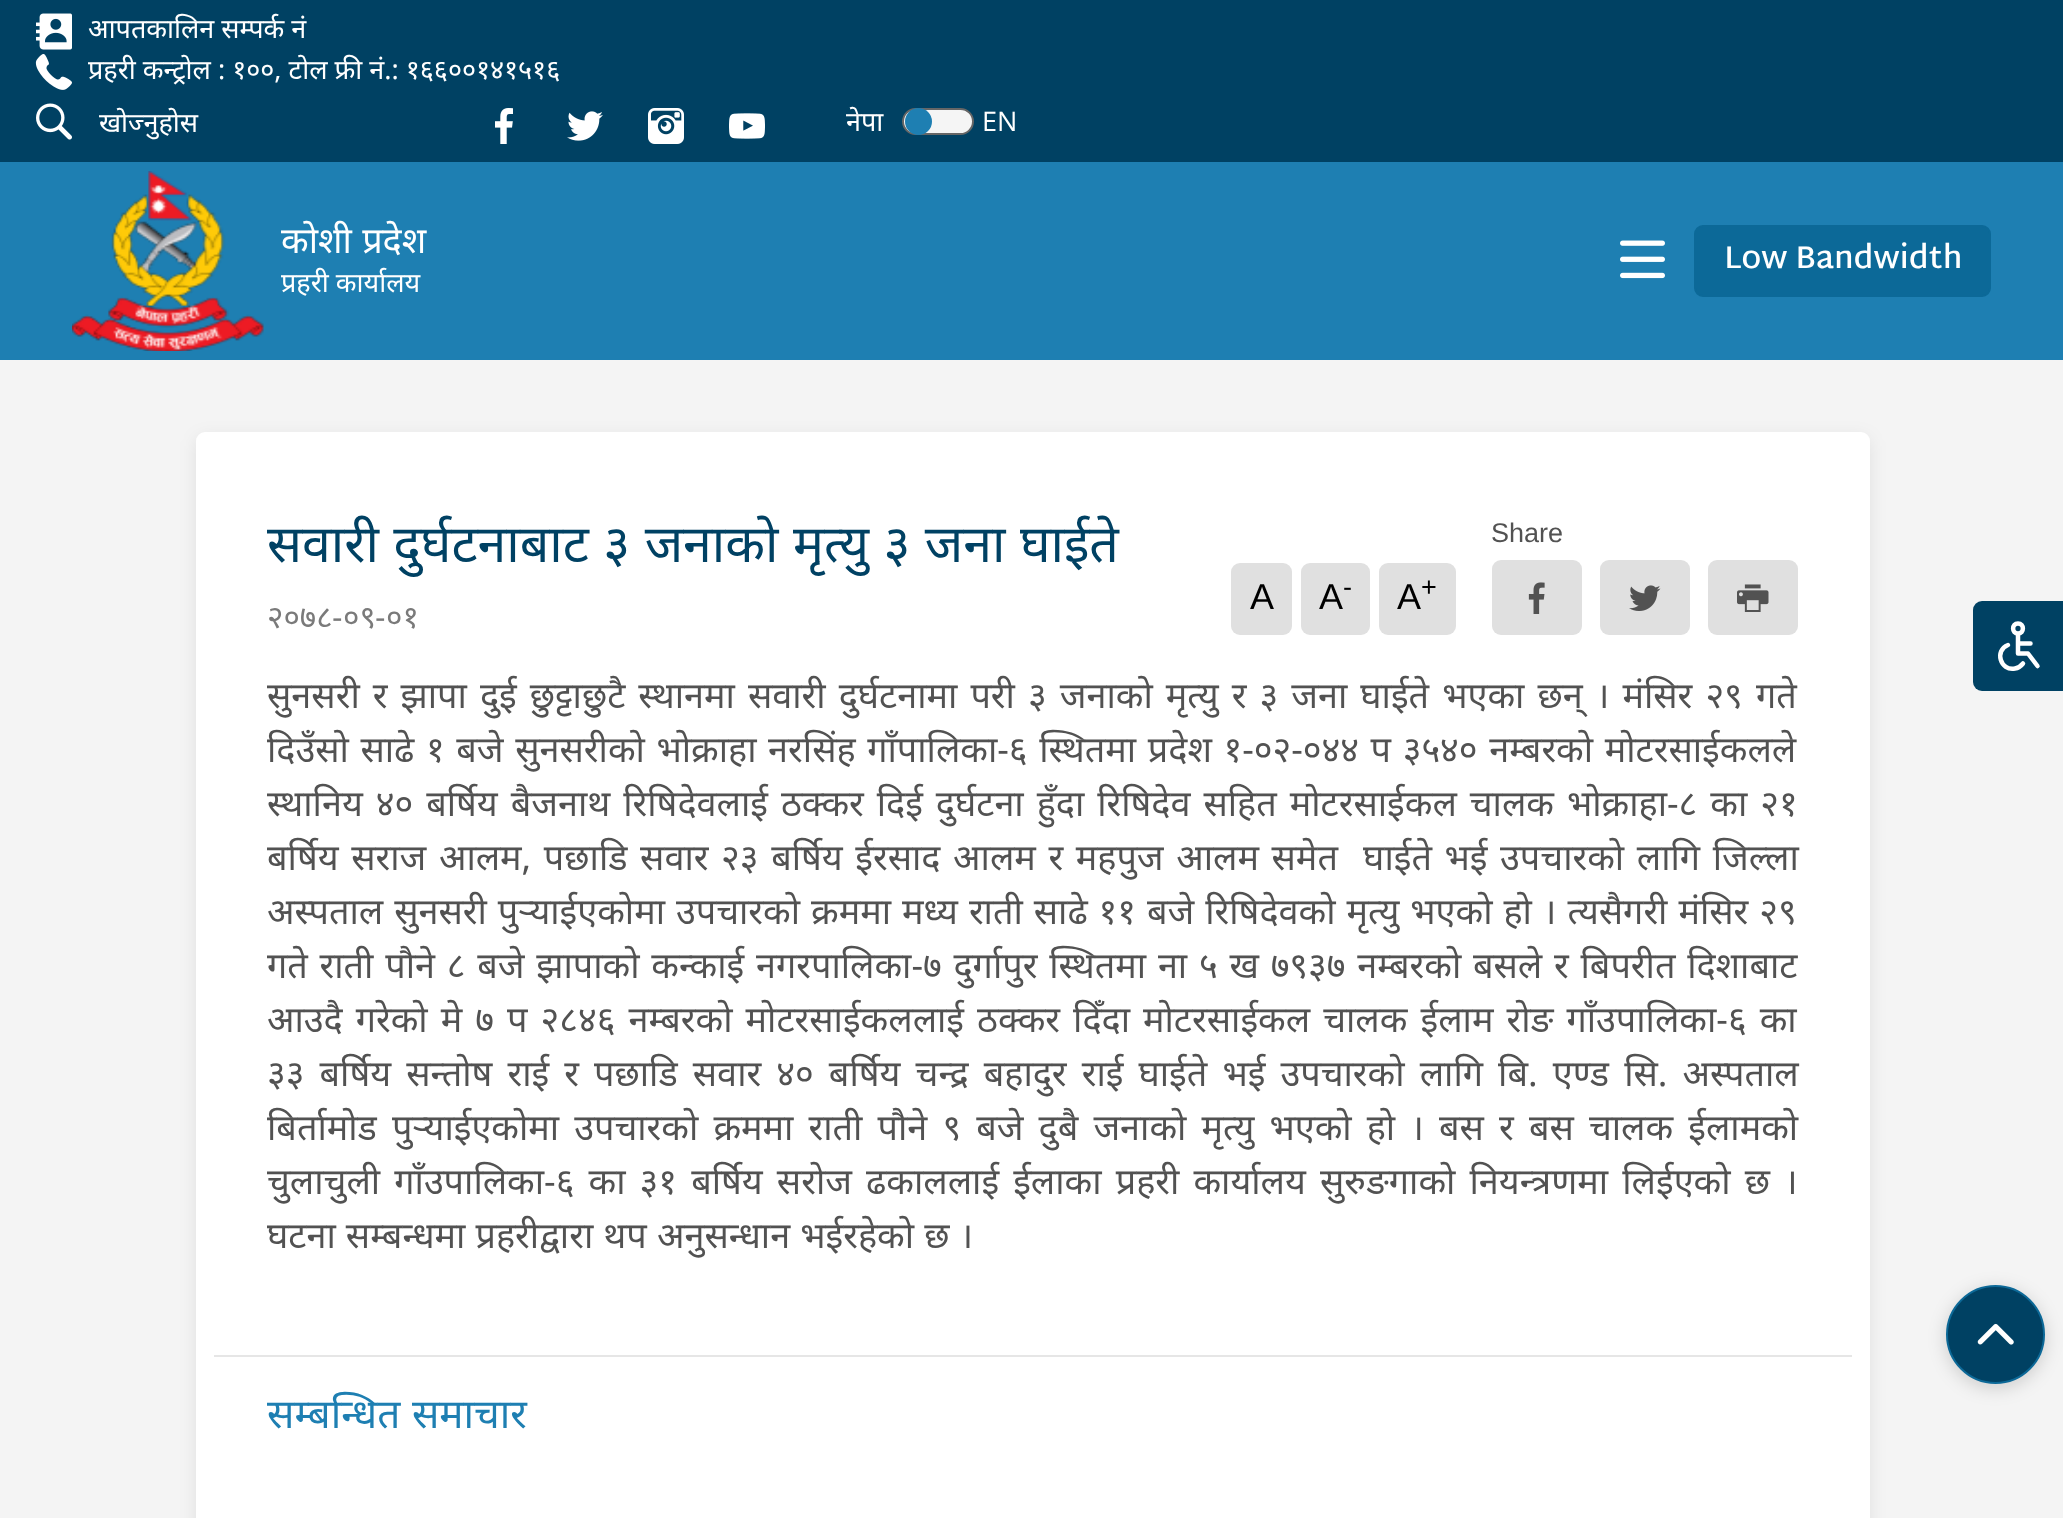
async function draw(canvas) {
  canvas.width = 2063;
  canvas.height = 1518;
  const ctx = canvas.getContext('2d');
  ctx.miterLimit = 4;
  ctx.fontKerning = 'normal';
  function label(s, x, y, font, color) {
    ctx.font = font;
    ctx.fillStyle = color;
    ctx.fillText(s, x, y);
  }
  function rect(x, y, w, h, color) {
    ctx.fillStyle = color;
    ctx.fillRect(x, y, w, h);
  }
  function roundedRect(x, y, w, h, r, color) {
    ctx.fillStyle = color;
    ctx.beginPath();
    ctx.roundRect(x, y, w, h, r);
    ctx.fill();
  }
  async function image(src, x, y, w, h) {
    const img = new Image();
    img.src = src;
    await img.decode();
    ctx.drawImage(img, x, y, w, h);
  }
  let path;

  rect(0, 0, 2063, 1518, '#f4f4f4');
  rect(0, 0, 2063, 162, '#004163');
  await image('assets/img1.png', 36, 13, 36, 37);
  label('आपतकालिन सम्पर्क नं', 88, 38, '27px Noto Sans', '#fff');
  await image('assets/img2.png', 35, 54, 37, 36);
  label('प्रहरी कन्ट्रोल : १००, टोल फ्री नं.: १६६००१४१५१६', 88, 79, '27px Noto Sans', '#fff');
  await image('assets/img3.png', 36, 103, 36, 37);
  ctx.save();
  ctx.beginPath();
  ctx.rect(99, 104, 351, 38);
  ctx.clip();
  label('खोज्नुहोस', 99, 132, '27px Noto Sans', '#fff');
  ctx.restore();
  await image('assets/img4.png', 495, 108, 18, 36);
  await image('assets/img5.png', 567, 111, 36, 30);
  await image('assets/img6.png', 648, 108, 36, 36);
  await image('assets/img7.png', 729, 113, 36, 26);
  label('नेपा', 846, 131, '27px Noto Sans', '#fff');
  ctx.fillStyle = '#f5f5f5';
  ctx.beginPath();
  ctx.roundRect(903, 109, 70, 25, 12.5);
  ctx.fill();
  ctx.strokeStyle = '#666';
  ctx.lineWidth = 2;
  ctx.stroke();
  ctx.fillStyle = '#1e7fb2';
  ctx.beginPath();
  ctx.arc(918.5, 121.5, 13.5, 0, 2 * Math.PI);
  ctx.fill();
  label('EN', 982, 131, '27px Open Sans', '#fff');
  rect(0, 162, 2063, 198, '#1e7fb2');
  await image('assets/img8.png', 72, 171, 192, 180);
  ctx.wordSpacing = '1px';
  label('कोशी प्रदेश', 281, 253, '36px Noto Sans', '#fff');
  ctx.wordSpacing = '0px';
  label('प्रहरी कार्यालय', 281, 292, '27px Noto Sans', '#fff');
  await image('assets/img9.png', 1620, 240, 45, 39);
  ctx.fillStyle = '#0c6998';
  ctx.beginPath();
  ctx.roundRect(1695, 226, 295, 70, 8);
  ctx.fill();
  ctx.strokeStyle = '#0c6998';
  ctx.stroke();
  label('Low Bandwidth', 1724, 268, '600 31.5px Martel Sans', '#fff');
  ctx.fillStyle = '#00000014';
  ctx.filter = 'blur(9px)';
  ctx.beginPath();
  ctx.roundRect(196, 437, 1674, 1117, 9);
  ctx.fill();
  ctx.filter = 'none';
  roundedRect(196, 432, 1674, 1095, 9, '#fff');
  ctx.wordSpacing = '1px';
  label('सवारी दुर्घटनाबाट ३ जनाको मृत्यु ३ जना घाईते', 267, 562, '51.8px Noto Sans', '#004163');
  ctx.wordSpacing = '0px';
  label('२०७८', 267, 628, '31.5px Noto Sans', '#7a7a7a');
  label('-', 332, 628, '31.5px Liberation Sans', '#7a7a7a');
  label('०९', 343, 628, '31.5px Noto Sans', '#7a7a7a');
  label('-', 375, 628, '31.5px Liberation Sans', '#7a7a7a');
  label('०१', 386, 628, '31.5px Noto Sans', '#7a7a7a');
  label('Share', 1491, 542, '27px Liberation Sans', '#525252');
  roundedRect(1492, 560, 90, 75, 9, '#e0e0e0');
  await image('assets/img10.png', 1528, 582, 17, 32);
  roundedRect(1600, 560, 90, 75, 9, '#e0e0e0');
  await image('assets/img11.png', 1629, 585, 32, 26);
  roundedRect(1708, 560, 90, 75, 9, '#e0e0e0');
  await image('assets/img12.png', 1737, 584, 32, 28);
  roundedRect(1231, 563, 61, 72, 9, '#e0e0e0');
  label('A', 1250, 609, '36px Liberation Sans', '#000');
  roundedRect(1301, 563, 69, 72, 9, '#e0e0e0');
  label('A', 1319, 609, '36px Liberation Sans', '#000');
  label('-', 1343, 596, '27px Liberation Sans', '#000');
  roundedRect(1379, 563, 77, 72, 9, '#e0e0e0');
  label('A', 1397, 609, '36px Liberation Sans', '#000');
  label('+', 1421, 596, '27px Liberation Sans', '#000');
  ctx.wordSpacing = '3.7px';
  label('सुनसरी र झापा दुई छुट्टाछुटै स्थानमा सवारी दुर्घटनामा परी ३ जनाको मृत्यु र ३ जना घाईते भएका छन् । मंसिर २९ गते', 267, 708, '36px Noto Sans', '#525252');
  ctx.wordSpacing = '2.25px';
  label('दिउँसो साढे १ बजे सुनसरीको भोक्राहा नरसिंह गाँपालिका-६ स्थितमा प्रदेश १-०२-०४४ प ३५४० नम्बरको मोटरसाईकलले', 267, 762, '36px Noto Sans', '#525252');
  ctx.wordSpacing = '3.6px';
  label('स्थानिय ४० बर्षिय बैजनाथ रिषिदेवलाई ठक्कर दिई दुर्घटना हुँदा रिषिदेव सहित मोटरसाईकल चालक भोक्राहा-८ का २१', 267, 816, '36px Noto Sans', '#525252');
  ctx.wordSpacing = '3.25px';
  label('बर्षिय सराज आलम, पछाडि सवार २३ बर्षिय ईरसाद आलम र महपुज आलम समेत  घाईते भई उपचारको लागि जिल्ला', 267, 870, '36px Noto Sans', '#525252');
  ctx.wordSpacing = '1.6px';
  label('अस्पताल सुनसरी पुर्‍याईएकोमा उपचारको क्रममा मध्य राती साढे ११ बजे रिषिदेवको मृत्यु भएको हो । त्यसैगरी मंसिर २९', 267, 924, '36px Noto Sans', '#525252');
  ctx.wordSpacing = '2.4px';
  label('गते राती पौने ८ बजे झापाको कन्काई नगरपालिका-७ दुर्गापुर स्थितमा ना ५ ख ७९३७ नम्बरको बसले र बिपरीत दिशाबाट', 267, 978, '36px Noto Sans', '#525252');
  ctx.wordSpacing = '3.7px';
  label('आउदै गरेको मे ७ प २८४६ नम्बरको मोटरसाईकललाई ठक्कर दिँदा मोटरसाईकल चालक ईलाम रोङ गाँउपालिका-६ का', 267, 1032, '36px Noto Sans', '#525252');
  ctx.wordSpacing = '5.75px';
  label('३३ बर्षिय सन्तोष राई र पछाडि सवार ४० बर्षिय चन्द्र बहादुर राई घाईते भई उपचारको लागि बि. एण्ड सि. अस्पताल', 267, 1086, '36px Noto Sans', '#525252');
  label('बिर्तामोड पुर्‍याईएकोमा उपचारको क्रममा राती पौने ९ बजे दुबै जनाको मृत्यु भएको हो । बस र बस चालक ईलामको', 267, 1140, '36px Noto Sans', '#525252');
  ctx.wordSpacing = '4.75px';
  label('चुलाचुली गाँउपालिका-६ का ३१ बर्षिय सरोज ढकाललाई ईलाका प्रहरी कार्यालय सुरुङगाको नियन्त्रणमा लिईएको छ ।', 267, 1194, '36px Noto Sans', '#525252');
  ctx.wordSpacing = '0.75px';
  label('घटना सम्बन्धमा प्रहरीद्वारा थप अनुसन्धान भईरहेको छ ।', 267, 1248, '36px Noto Sans', '#525252');
  rect(214, 1355, 1638, 2, '#e6e6e6');
  ctx.wordSpacing = '1px';
  label('सम्बन्धित समाचार', 267, 1428, '40.5px Noto Sans', '#1e7fb2');
  ctx.fillStyle = '#00000029';
  ctx.filter = 'blur(9px)';
  ctx.beginPath();
  ctx.roundRect(1946, 1289, 99, 99, 49.5);
  ctx.fill();
  ctx.filter = 'none';
  ctx.fillStyle = '#004163';
  ctx.beginPath();
  ctx.arc(1995.5, 1334.5, 48.5, 0, 2 * Math.PI);
  ctx.fill();
  ctx.stroke();
  await image('assets/img13.png', 1977, 1323, 37, 22);
  ctx.beginPath();
  ctx.roundRect(1973, 601, 90, 90, [9, 0, 0, 9]);
  ctx.fill();
  path = new Path2D('M2018 633.5C2024.5 633.5 2024.5 623.5 2018 623.5C2011.5 623.5 2011.5 633.5 2018 633.5ZM2018 633.5V653.5H2028L2037.5 666M2018 643.5H2030.5M2008 645C1994 650.5 2000.5 671.5 2015 668.5C2018.5 668 2021 666 2023 663.5');
  ctx.strokeStyle = '#fff';
  ctx.lineWidth = 4.5;
  ctx.lineCap = 'round';
  ctx.lineJoin = 'round';
  ctx.stroke(path);
}

draw(document.querySelector('canvas'));
